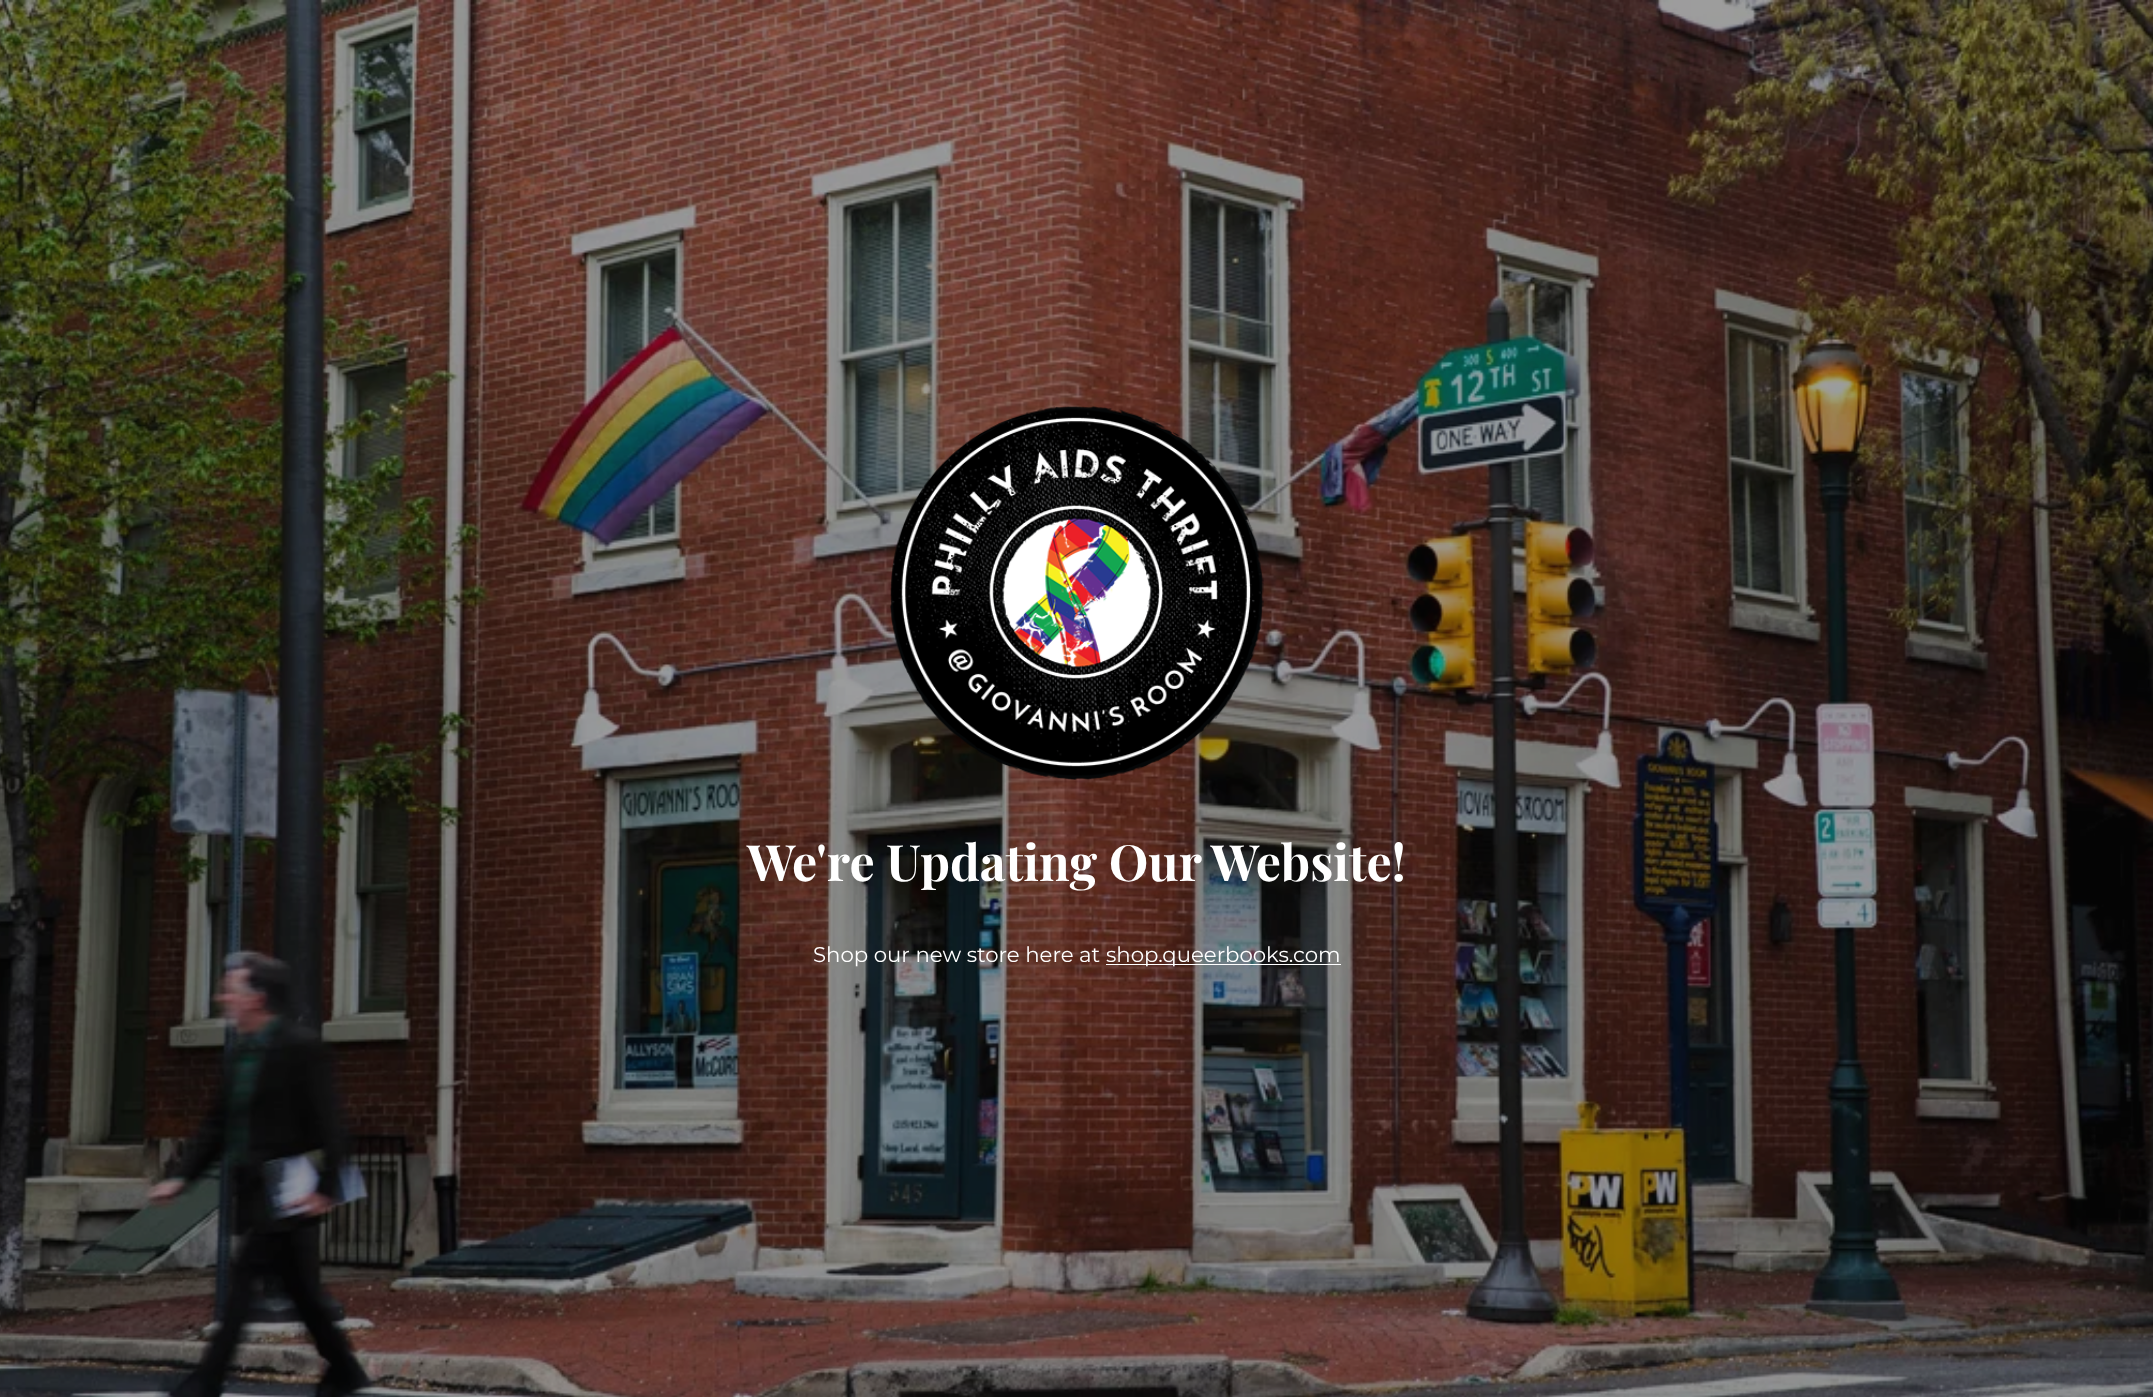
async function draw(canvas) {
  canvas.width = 2153;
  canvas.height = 1397;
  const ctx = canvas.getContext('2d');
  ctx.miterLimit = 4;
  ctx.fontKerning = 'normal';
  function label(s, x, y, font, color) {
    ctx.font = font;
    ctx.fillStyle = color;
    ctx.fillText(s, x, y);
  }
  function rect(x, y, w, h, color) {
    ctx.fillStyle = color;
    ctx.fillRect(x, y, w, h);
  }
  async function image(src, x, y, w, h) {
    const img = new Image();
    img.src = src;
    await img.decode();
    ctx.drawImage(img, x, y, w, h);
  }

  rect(0, 0, 2153, 1397, '#fff');
  await image('assets/img1.png', 0, 0, 2153, 1397);
  await image('assets/img2.png', 890, 406, 374, 374);
  label('We\'re Updating Our Website!', 747, 881, 'bold 50px Playfair Display', '#fff');
  label('Shop our new store here at', 813, 962, '21.25px Montserrat', '#fff');
  rect(1106, 964, 235, 1, '#fff');
  label('shop.queerbooks.com', 1106, 962, '21.25px Montserrat', '#fff');
}

draw(document.querySelector('canvas'));
